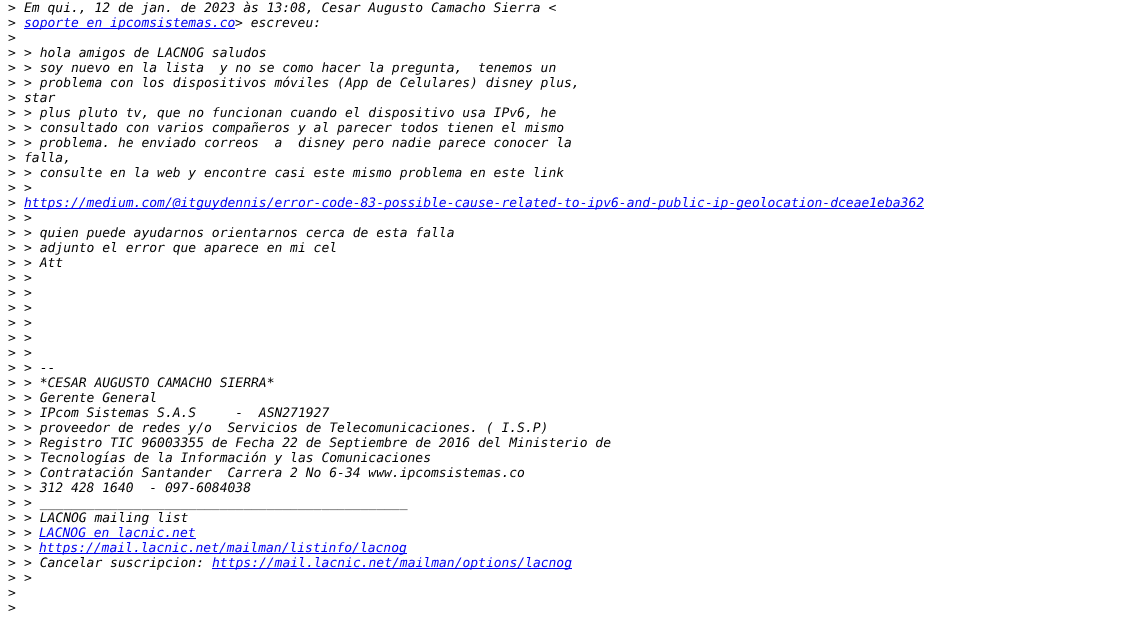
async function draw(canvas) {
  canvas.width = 1140;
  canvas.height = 623;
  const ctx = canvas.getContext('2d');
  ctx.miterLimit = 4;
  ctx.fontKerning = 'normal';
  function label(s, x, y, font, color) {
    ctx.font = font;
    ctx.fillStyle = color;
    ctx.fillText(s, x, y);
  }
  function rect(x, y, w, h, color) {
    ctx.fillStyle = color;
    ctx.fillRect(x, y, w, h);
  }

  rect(0, 0, 1140, 623, '#fff');
  label('>', 8, 12, '13px DejaVu Sans Mono', '#000');
  label('Em qui., 12 de jan. de 2023 às 13:08, Cesar Augusto Camacho Sierra <', 24, 12, 'italic 13px DejaVu Sans Mono', '#000');
  label('>', 8, 27, '13px DejaVu Sans Mono', '#000');
  rect(24, 28, 211, 1, '#00e');
  label('soporte en ipcomsistemas.co', 24, 27, 'italic 13px DejaVu Sans Mono', '#00e');
  label('> escreveu:', 235, 27, 'italic 13px DejaVu Sans Mono', '#000');
  label('>', 8, 42, '13px DejaVu Sans Mono', '#000');
  label('>', 8, 57, '13px DejaVu Sans Mono', '#000');
  label('> hola amigos de LACNOG saludos', 24, 57, 'italic 13px DejaVu Sans Mono', '#000');
  label('>', 8, 72, '13px DejaVu Sans Mono', '#000');
  label('> soy nuevo en la lista  y no se como hacer la pregunta,  tenemos un', 24, 72, 'italic 13px DejaVu Sans Mono', '#000');
  label('>', 8, 87, '13px DejaVu Sans Mono', '#000');
  label('> problema con los dispositivos móviles (App de Celulares) disney plus,', 24, 87, 'italic 13px DejaVu Sans Mono', '#000');
  label('>', 8, 102, '13px DejaVu Sans Mono', '#000');
  label('star', 24, 102, 'italic 13px DejaVu Sans Mono', '#000');
  label('>', 8, 117, '13px DejaVu Sans Mono', '#000');
  label('> plus pluto tv, que no funcionan cuando el dispositivo usa IPv6, he', 24, 117, 'italic 13px DejaVu Sans Mono', '#000');
  label('>', 8, 132, '13px DejaVu Sans Mono', '#000');
  label('> consultado con varios compañeros y al parecer todos tienen el mismo', 24, 132, 'italic 13px DejaVu Sans Mono', '#000');
  label('>', 8, 147, '13px DejaVu Sans Mono', '#000');
  label('> problema. he enviado correos  a  disney pero nadie parece conocer la', 24, 147, 'italic 13px DejaVu Sans Mono', '#000');
  label('>', 8, 162, '13px DejaVu Sans Mono', '#000');
  label('falla,', 24, 162, 'italic 13px DejaVu Sans Mono', '#000');
  label('>', 8, 177, '13px DejaVu Sans Mono', '#000');
  label('> consulte en la web y encontre casi este mismo problema en este link', 24, 177, 'italic 13px DejaVu Sans Mono', '#000');
  label('>', 8, 192, '13px DejaVu Sans Mono', '#000');
  label('>', 24, 192, 'italic 13px DejaVu Sans Mono', '#000');
  label('>', 8, 207, '13px DejaVu Sans Mono', '#000');
  rect(24, 208, 900, 1, '#00e');
  label('https://medium.com/@itguydennis/error-code-83-possible-cause-related-to-ipv6-and-public-ip-geolocation-dceae1eba362', 24, 207, 'italic 13px DejaVu Sans Mono', '#00e');
  label('>', 8, 222, '13px DejaVu Sans Mono', '#000');
  label('>', 24, 222, 'italic 13px DejaVu Sans Mono', '#000');
  label('>', 8, 237, '13px DejaVu Sans Mono', '#000');
  label('> quien puede ayudarnos orientarnos cerca de esta falla', 24, 237, 'italic 13px DejaVu Sans Mono', '#000');
  label('>', 8, 252, '13px DejaVu Sans Mono', '#000');
  label('> adjunto el error que aparece en mi cel', 24, 252, 'italic 13px DejaVu Sans Mono', '#000');
  label('>', 8, 267, '13px DejaVu Sans Mono', '#000');
  label('> Att', 24, 267, 'italic 13px DejaVu Sans Mono', '#000');
  label('>', 8, 282, '13px DejaVu Sans Mono', '#000');
  label('>', 24, 282, 'italic 13px DejaVu Sans Mono', '#000');
  label('>', 8, 297, '13px DejaVu Sans Mono', '#000');
  label('>', 24, 297, 'italic 13px DejaVu Sans Mono', '#000');
  label('>', 8, 312, '13px DejaVu Sans Mono', '#000');
  label('>', 24, 312, 'italic 13px DejaVu Sans Mono', '#000');
  label('>', 8, 327, '13px DejaVu Sans Mono', '#000');
  label('>', 24, 327, 'italic 13px DejaVu Sans Mono', '#000');
  label('>', 8, 342, '13px DejaVu Sans Mono', '#000');
  label('>', 24, 342, 'italic 13px DejaVu Sans Mono', '#000');
  label('>', 8, 357, '13px DejaVu Sans Mono', '#000');
  label('>', 24, 357, 'italic 13px DejaVu Sans Mono', '#000');
  label('>', 8, 372, '13px DejaVu Sans Mono', '#000');
  label('> --', 24, 372, 'italic 13px DejaVu Sans Mono', '#000');
  label('>', 8, 387, '13px DejaVu Sans Mono', '#000');
  label('> *CESAR AUGUSTO CAMACHO SIERRA*', 24, 387, 'italic 13px DejaVu Sans Mono', '#000');
  label('>', 8, 402, '13px DejaVu Sans Mono', '#000');
  label('> Gerente General', 24, 402, 'italic 13px DejaVu Sans Mono', '#000');
  label('>', 8, 417, '13px DejaVu Sans Mono', '#000');
  label('> IPcom Sistemas S.A.S     -  ASN271927', 24, 417, 'italic 13px DejaVu Sans Mono', '#000');
  label('>', 8, 432, '13px DejaVu Sans Mono', '#000');
  label('> proveedor de redes y/o  Servicios de Telecomunicaciones. ( I.S.P)', 24, 432, 'italic 13px DejaVu Sans Mono', '#000');
  label('>', 8, 447, '13px DejaVu Sans Mono', '#000');
  label('> Registro TIC 96003355 de Fecha 22 de Septiembre de 2016 del Ministerio de', 24, 447, 'italic 13px DejaVu Sans Mono', '#000');
  label('>', 8, 462, '13px DejaVu Sans Mono', '#000');
  label('> Tecnologías de la Información y las Comunicaciones', 24, 462, 'italic 13px DejaVu Sans Mono', '#000');
  label('>', 8, 477, '13px DejaVu Sans Mono', '#000');
  label('> Contratación Santander  Carrera 2 No 6-34 www.ipcomsistemas.co', 24, 477, 'italic 13px DejaVu Sans Mono', '#000');
  label('>', 8, 492, '13px DejaVu Sans Mono', '#000');
  label('> 312 428 1640  - 097-6084038', 24, 492, 'italic 13px DejaVu Sans Mono', '#000');
  label('>', 8, 507, '13px DejaVu Sans Mono', '#000');
  label('> _______________________________________________', 24, 507, 'italic 13px DejaVu Sans Mono', '#000');
  label('>', 8, 522, '13px DejaVu Sans Mono', '#000');
  label('> LACNOG mailing list', 24, 522, 'italic 13px DejaVu Sans Mono', '#000');
  label('>', 8, 537, '13px DejaVu Sans Mono', '#000');
  label('>', 24, 537, 'italic 13px DejaVu Sans Mono', '#000');
  label('LACNOG en lacnic.net', 39, 537, 'italic 13px DejaVu Sans Mono', '#00e');
  rect(39, 538, 157, 1, '#00e');
  label('>', 8, 552, '13px DejaVu Sans Mono', '#000');
  label('>', 24, 552, 'italic 13px DejaVu Sans Mono', '#000');
  rect(39, 553, 368, 1, '#00e');
  label('https://mail.lacnic.net/mailman/listinfo/lacnog', 39, 552, 'italic 13px DejaVu Sans Mono', '#00e');
  label('>', 8, 567, '13px DejaVu Sans Mono', '#000');
  label('> Cancelar suscripcion:', 24, 567, 'italic 13px DejaVu Sans Mono', '#000');
  rect(212, 568, 360, 1, '#00e');
  label('https://mail.lacnic.net/mailman/options/lacnog', 212, 567, 'italic 13px DejaVu Sans Mono', '#00e');
  label('>', 8, 582, '13px DejaVu Sans Mono', '#000');
  label('>', 24, 582, 'italic 13px DejaVu Sans Mono', '#000');
  label('>', 8, 597, '13px DejaVu Sans Mono', '#000');
  label('>', 8, 612, '13px DejaVu Sans Mono', '#000');
}

draw(document.querySelector('canvas'));
